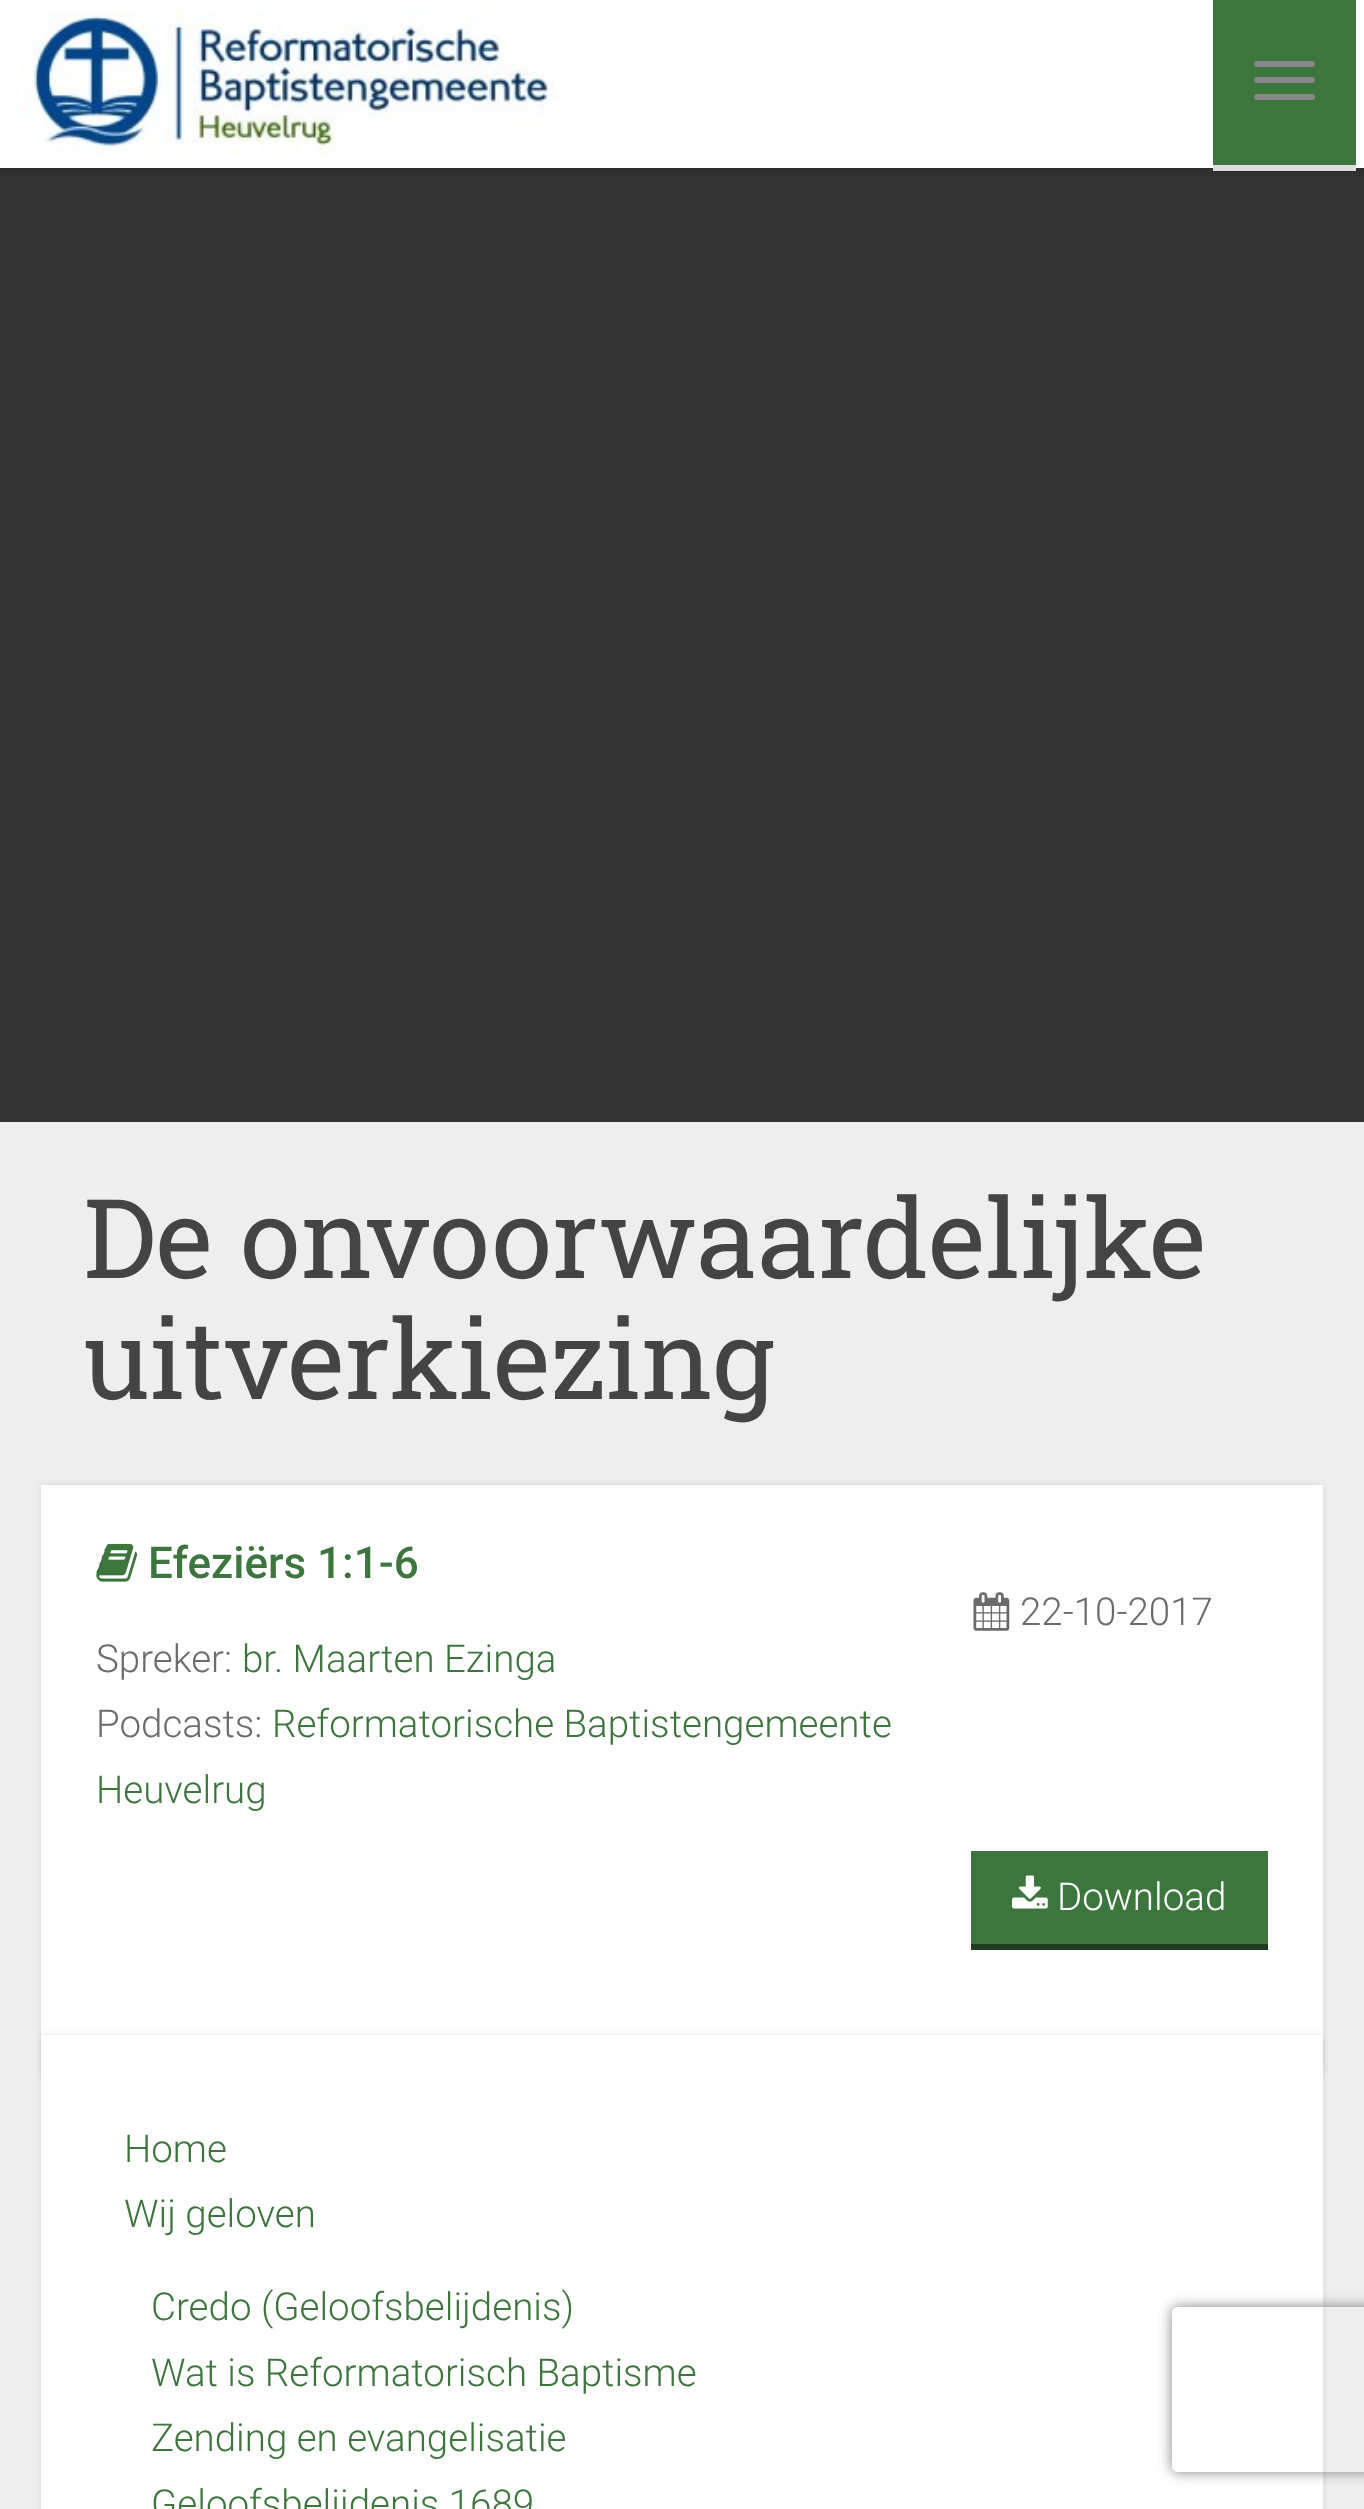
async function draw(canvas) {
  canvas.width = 1364;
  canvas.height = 2509;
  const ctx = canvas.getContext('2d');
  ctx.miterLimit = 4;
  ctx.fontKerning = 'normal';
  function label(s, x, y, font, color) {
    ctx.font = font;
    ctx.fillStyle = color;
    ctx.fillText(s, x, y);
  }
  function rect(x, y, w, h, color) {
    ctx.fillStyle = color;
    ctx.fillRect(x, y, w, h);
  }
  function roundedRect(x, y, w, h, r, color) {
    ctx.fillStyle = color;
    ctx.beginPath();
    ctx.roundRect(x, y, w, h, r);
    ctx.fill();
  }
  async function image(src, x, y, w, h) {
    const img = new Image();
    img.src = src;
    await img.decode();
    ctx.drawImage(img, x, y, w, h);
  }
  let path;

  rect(0, 0, 1364, 2509, '#eee');
  rect(0, 168, 1364, 954, '#333');
  ctx.fillStyle = '#0000004d';
  ctx.filter = 'blur(5.5px)';
  ctx.beginPath();
  ctx.rect(0, -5, 1364, 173);
  ctx.fill();
  ctx.filter = 'none';
  rect(0, 0, 1364, 168, '#fff');
  await image('assets/img1.png', 16, 11, 543, 143);
  rect(1213, 0, 143, 165, '#3c763d');
  rect(1213, 165, 143, 6, '#ddd');
  roundedRect(1254, 61, 61, 6, 3, '#888');
  roundedRect(1254, 77, 61, 6, 3, '#888');
  roundedRect(1254, 94, 61, 6, 3, '#888');
  label('De onvoorwaardelijke', 83, 1278, '110px Roboto Slab', '#444');
  label('uitverkiezing', 83, 1399, '110px Roboto Slab', '#444');
  ctx.fillStyle = '#0000001a';
  ctx.filter = 'blur(3px)';
  ctx.beginPath();
  ctx.rect(41, 1485, 1282, 591);
  ctx.fill();
  ctx.filter = 'none';
  rect(41, 1485, 1282, 550, '#fff');
  await image('assets/img2.png', 96, 1543, 42, 39);
  label('Efeziërs 1:1-6', 148, 1578, '500 44px Roboto', '#3c763d');
  await image('assets/img3.png', 973, 1592, 37, 39);
  label('22-10-2017', 1020, 1625, '300 38.5px Roboto', '#6b6b6b');
  label('Spreker:', 96, 1672, '300 38.5px Roboto', '#6b6b6b');
  label('br. Maarten Ezinga', 242, 1672, '300 38.5px Roboto', '#3c763d');
  label('Podcasts:', 96, 1737, '300 38.5px Roboto', '#6b6b6b');
  label('Reformatorische Baptistengemeente', 272, 1737, '300 38.5px Roboto', '#3c763d');
  label('Heuvelrug', 96, 1803, '300 38.5px Roboto', '#3c763d');
  rect(971, 1851, 297, 93, '#3c763d');
  rect(971, 1944, 297, 6, '#1e3c1e');
  await image('assets/img4.png', 1012, 1875, 36, 34);
  label('Download', 1057, 1910, '300 38.5px Roboto', '#fff');
  ctx.fillStyle = '#0000001a';
  ctx.filter = 'blur(3px)';
  ctx.beginPath();
  ctx.rect(41, 2035, 1282, 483);
  ctx.fill();
  ctx.filter = 'none';
  rect(41, 2035, 1282, 474, '#fff');
  label('Home', 124, 2162, '300 38.5px Roboto', '#3c763d');
  label('Wij geloven', 124, 2227, '300 38.5px Roboto', '#3c763d');
  label('Credo (Geloofsbelijdenis)', 151, 2320, '300 38.5px Roboto', '#3c763d');
  label('Wat is Reformatorisch Baptisme', 151, 2386, '300 38.5px Roboto', '#3c763d');
  label('Zending en evangelisatie', 151, 2451, '300 38.5px Roboto', '#3c763d');
  label('Geloofsbelijdenis 1689', 151, 2517, '300 38.5px Roboto', '#3c763d');
  ctx.save();
  path = new Path2D('M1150 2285H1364V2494H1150ZM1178 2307H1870C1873.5 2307 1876 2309.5 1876 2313V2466C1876 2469.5 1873.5 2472 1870 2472H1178C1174.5 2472 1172 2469.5 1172 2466V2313C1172 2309.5 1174.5 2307 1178 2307Z');
  ctx.clip(path, 'evenodd');
  ctx.fillStyle = '#808080';
  ctx.filter = 'blur(7px)';
  ctx.beginPath();
  ctx.roundRect(1172, 2307, 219, 165, 6);
  ctx.fill();
  ctx.filter = 'none';
  ctx.restore();
}

draw(document.querySelector('canvas'));
